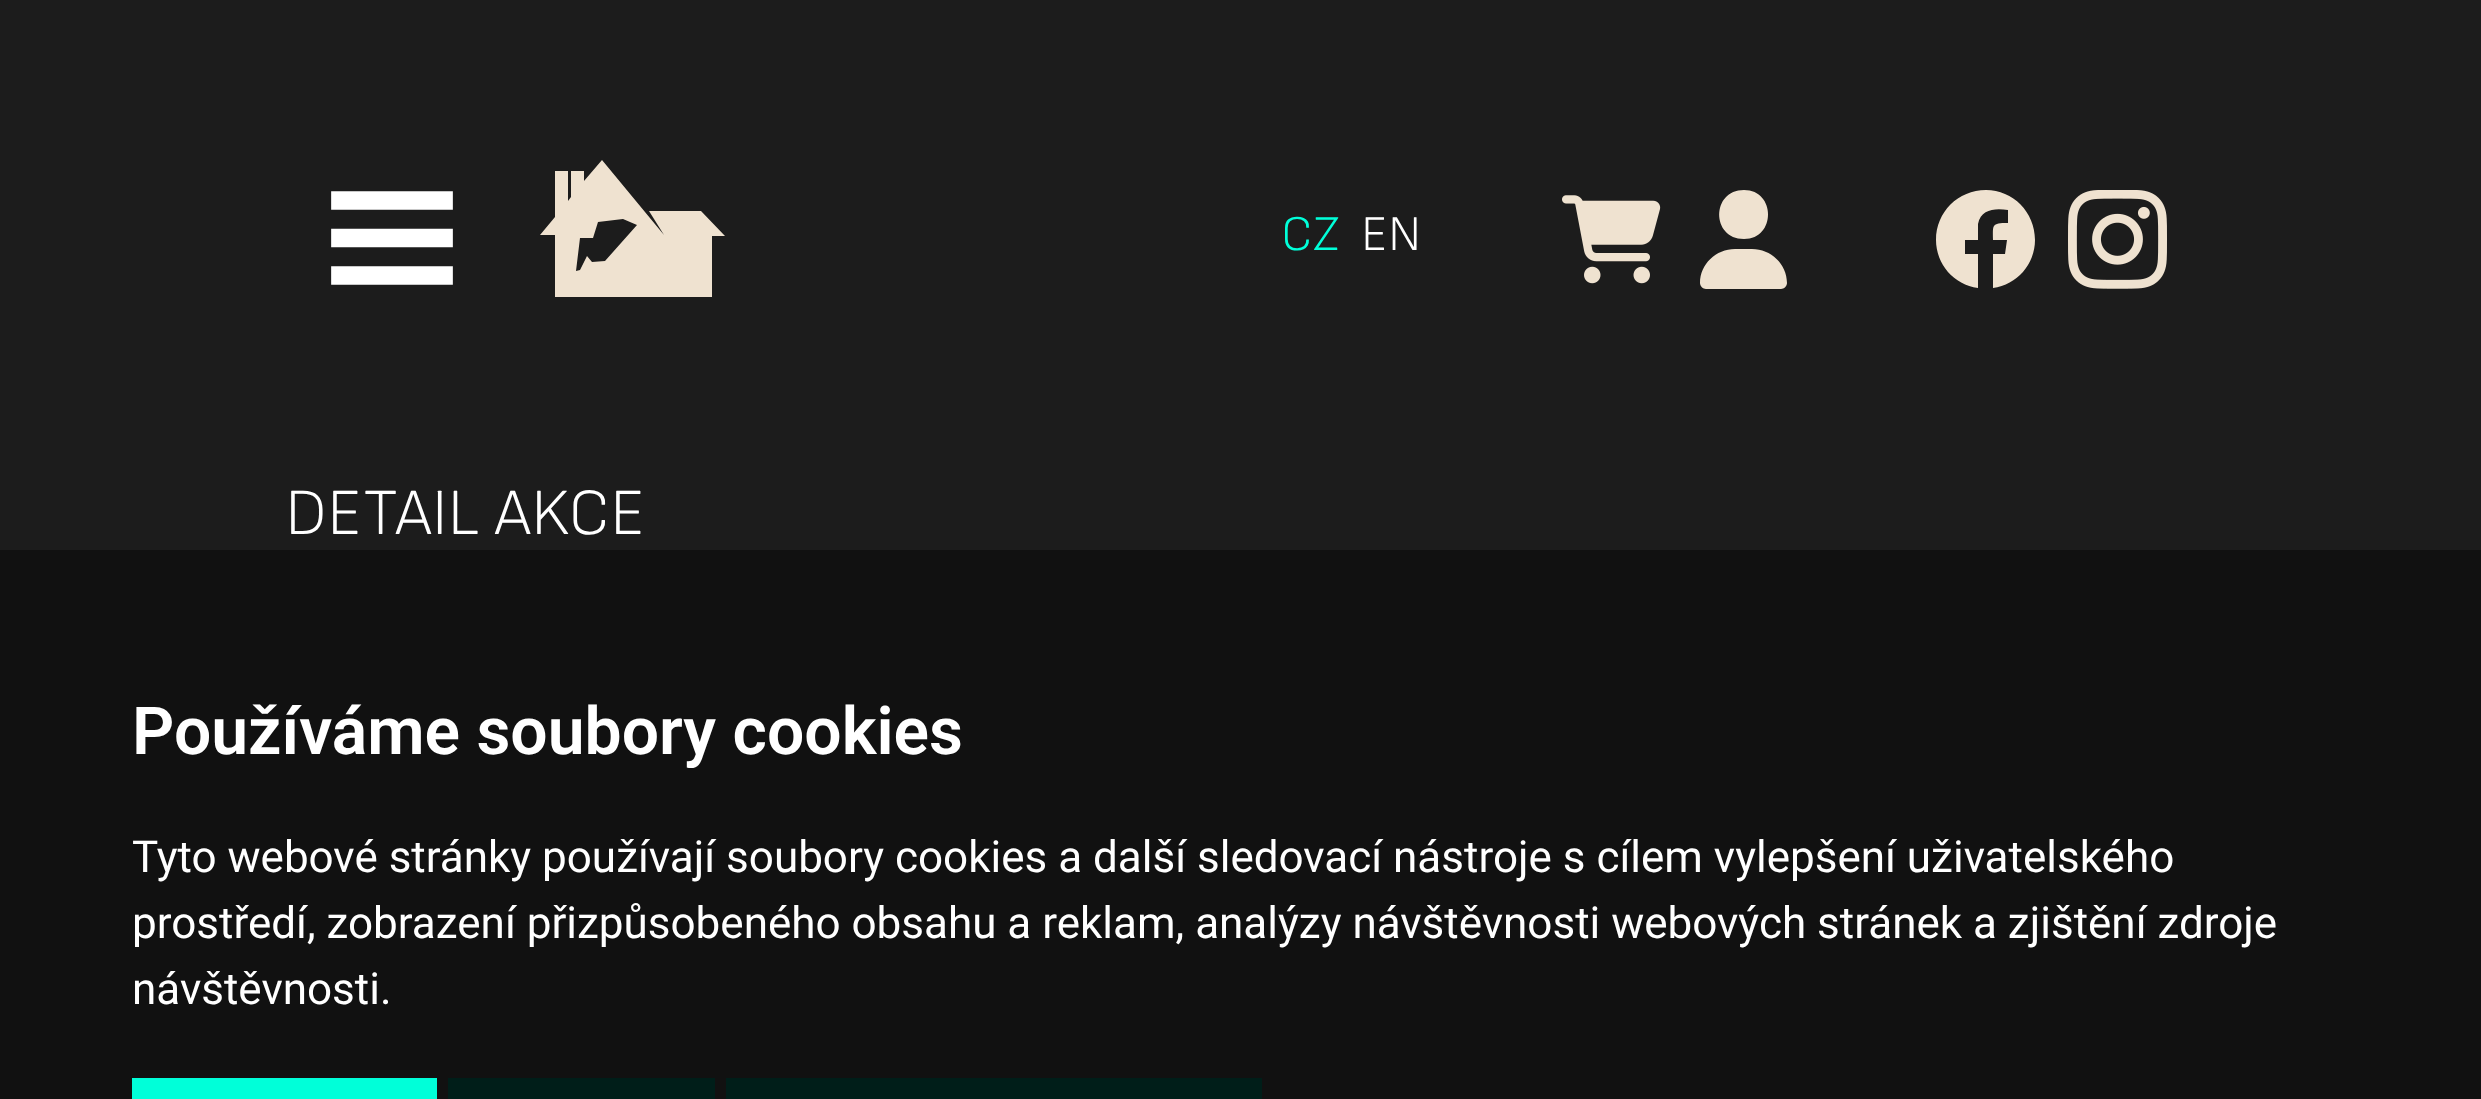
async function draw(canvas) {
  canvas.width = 2481;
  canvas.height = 1099;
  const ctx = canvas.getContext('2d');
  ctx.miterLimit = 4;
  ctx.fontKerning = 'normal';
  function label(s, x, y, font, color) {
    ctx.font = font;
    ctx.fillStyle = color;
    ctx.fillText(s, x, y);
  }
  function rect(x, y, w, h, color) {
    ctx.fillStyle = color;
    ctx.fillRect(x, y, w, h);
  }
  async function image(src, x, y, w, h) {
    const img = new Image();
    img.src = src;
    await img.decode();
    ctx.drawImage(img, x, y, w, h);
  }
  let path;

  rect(0, 0, 2481, 1099, '#1c1c1c');
  path = new Path2D('M340.5 200.5H443.5M340.5 238H443.5M340.5 275.5H443.5');
  ctx.strokeStyle = '#fff';
  ctx.lineWidth = 18.7;
  ctx.lineCap = 'square';
  ctx.stroke(path);
  ctx.fillStyle = '#efe2d0';
  path = new Path2D('M701 211H649L664 235L602 160L584 181V171H571V197L568 201V171H555V217L540 235H555V297H712V236H725ZM605 261L592 262L587 256L580 270L576 271L580 238H593L598 222L623 219L637 225Z');
  ctx.fill(path);
  label('CZ', 1281, 250, '300 50px Sofia Sans', '#00ffd9');
  label('EN', 1361, 250, '300 50px Sofia Sans', '#fff');
  await image('assets/img1.png', 1562, 195, 99, 89);
  ctx.fillStyle = '#efe2d0';
  path = new Path2D('M1744 239C1776 239 1776 190 1744 190C1711 190 1711 239 1744 239ZM1735 249C1716 249 1700 264 1700 283C1700 286 1703 289 1706 289H1781C1784 289 1787 286 1787 283C1787 264 1771 249 1752 249Z');
  ctx.fill(path);
  path = new Path2D('M1986 190C1958 190 1936 212 1936 240C1936 264 1954 285 1978 288V254H1965V240H1978V224C1981 209 1995 208 2008 210V223C1991 223 1993 225 1993 240H2007L2005 254H1993V288C2017 285 2035 264 2035 240C2035 212 2013 190 1986 190Z');
  ctx.fill(path);
  await image('assets/img2.png', 2068, 190, 99, 99);
  label('DETAIL AKCE', 285, 534, '300 66px Sofia Sans', '#fff');
  rect(0, 550, 2481, 549, '#111');
  label('Používáme soubory cookies', 132, 754, '600 66px Roboto', '#fff');
  label('Tyto webové stránky používají soubory cookies a další sledovací nástroje s cílem vylepšení uživatelského', 132, 872, '44px Roboto', '#fff');
  label('prostředí, zobrazení přizpůsobeného obsahu a reklam, analýzy návštěvnosti webových stránek a zjištění zdroje', 132, 938, '44px Roboto', '#fff');
  label('návštěvnosti.', 132, 1004, '44px Roboto', '#fff');
  rect(132, 1078, 305, 21, '#00ffd9');
  rect(448, 1078, 267, 21, '#001e19');
  rect(726, 1078, 536, 21, '#001e19');
}

draw(document.querySelector('canvas'));
